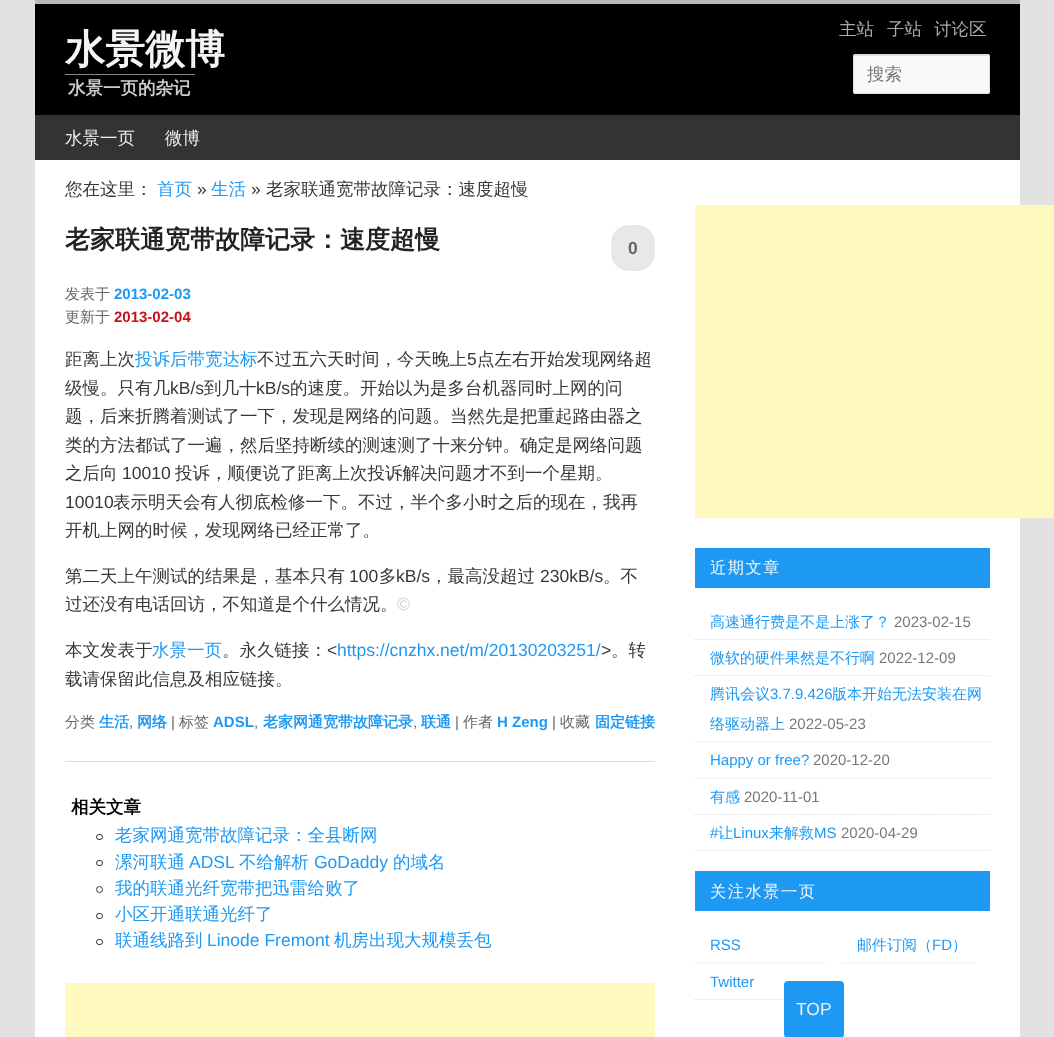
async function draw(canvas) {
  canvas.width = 1054;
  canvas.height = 1037;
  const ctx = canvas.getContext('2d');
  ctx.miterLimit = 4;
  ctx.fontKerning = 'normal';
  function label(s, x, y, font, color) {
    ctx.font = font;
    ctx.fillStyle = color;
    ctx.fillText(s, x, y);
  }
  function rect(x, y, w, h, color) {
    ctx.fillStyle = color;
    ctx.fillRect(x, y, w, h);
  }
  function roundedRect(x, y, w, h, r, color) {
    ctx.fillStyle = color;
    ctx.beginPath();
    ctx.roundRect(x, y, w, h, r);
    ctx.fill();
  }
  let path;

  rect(0, 0, 1054, 1037, '#e2e2e2');
  rect(35, 160, 985, 877, '#fff');
  rect(35, 4, 985, 111, '#000');
  rect(35, 0, 985, 4, '#bbb');
  label('水景微博', 65, 63, 'bold 40px WenQuanYi Zen Hei', '#f5f5f5');
  rect(65, 74, 130, 1, '#888');
  label('水景一页的杂记', 68, 94, 'bold 17.5px WenQuanYi Zen Hei', '#ccc');
  label('主站', 839, 35, '500 17.5px WenQuanYi Zen Hei', '#aaa');
  label('子站', 887, 35, '500 17.5px WenQuanYi Zen Hei', '#aaa');
  label('讨论区', 934, 35, '500 17.5px WenQuanYi Zen Hei', '#aaa');
  roundedRect(853, 54, 137, 40, 2.5, '#f9f9f9');
  ctx.fillStyle = '#e0e0e0';
  path = new Path2D('M855 56H988L989 58C989 57 989 55 988 55H855C854 56 854 57 854 58C854 57 854 56 855 56Z');
  ctx.fill(path);
  ctx.beginPath();
  ctx.roundRect(853.5, 54.5, 136, 39, 2);
  ctx.strokeStyle = '#ddd';
  ctx.stroke();
  label('搜索', 867, 80, '500 17.5px WenQuanYi Zen Hei', '#777');
  rect(35, 115, 985, 45, '#333');
  label('水景一页', 65, 144, '500 17.5px WenQuanYi Zen Hei', '#eee');
  label('微博', 165, 144, '500 17.5px WenQuanYi Zen Hei', '#eee');
  label('您在这里：', 65, 195, '500 17.5px WenQuanYi Zen Hei', '#373737');
  label('首页', 157, 195, '500 17.5px WenQuanYi Zen Hei', '#1d99f3');
  label('»', 197, 195, '17.5px Liberation Sans', '#373737');
  label('生活', 211, 195, '500 17.5px WenQuanYi Zen Hei', '#1d99f3');
  label('»', 251, 195, '17.5px Liberation Sans', '#373737');
  label('老家联通宽带故障记录：速度超慢', 266, 195, '500 17.5px WenQuanYi Zen Hei', '#373737');
  rect(65, 761, 590, 1, '#ddd');
  label('老家联通宽带故障记录：速度超慢', 65, 248, 'bold 25px WenQuanYi Zen Hei', '#222');
  roundedRect(611, 225, 44, 46, 18, '#e8e8e8');
  label('0', 628, 254, 'bold 17.5px Liberation Sans', '#666');
  label('发表于', 65, 299, '500 15px WenQuanYi Zen Hei', '#666');
  label('2013-02-03', 114, 299, 'bold 15px Liberation Sans', '#1d99f3');
  label('更新于', 65, 322, '500 15px WenQuanYi Zen Hei', '#666');
  label('2013-02-04', 114, 322, 'bold 15px Liberation Sans', '#c8111b');
  label('距离上次', 65, 365, '500 17.5px WenQuanYi Zen Hei', '#373737');
  label('投诉后带宽达标', 135, 365, '500 17.5px WenQuanYi Zen Hei', '#1d99f3');
  label('不过五六天时间，今天晚上', 257, 365, '500 17.5px WenQuanYi Zen Hei', '#373737');
  label('5', 467, 365, '17.5px Liberation Sans', '#373737');
  label('点左右开始发现网络超', 477, 365, '500 17.5px WenQuanYi Zen Hei', '#373737');
  label('级慢。只有几', 65, 394, '500 17.5px WenQuanYi Zen Hei', '#373737');
  label('kB/s', 170, 394, '17.5px Liberation Sans', '#373737');
  label('到几十', 204, 394, '500 17.5px WenQuanYi Zen Hei', '#373737');
  label('kB/s', 256, 394, '17.5px Liberation Sans', '#373737');
  label('的速度。开始以为是多台机器同时上网的问', 290, 394, '500 17.5px WenQuanYi Zen Hei', '#373737');
  label('题，后来折腾着测试了一下，发现是网络的问题。当然先是把重起路由器之', 65, 422, '500 17.5px WenQuanYi Zen Hei', '#373737');
  label('类的方法都试了一遍，然后坚持断续的测速测了十来分钟。确定是网络问题', 65, 451, '500 17.5px WenQuanYi Zen Hei', '#373737');
  label('之后向', 65, 479, '500 17.5px WenQuanYi Zen Hei', '#373737');
  label('10010', 122, 479, '17.5px Liberation Sans', '#373737');
  label('投诉，顺便说了距离上次投诉解决问题才不到一个星期。', 175, 479, '500 17.5px WenQuanYi Zen Hei', '#373737');
  label('10010', 65, 508, '17.5px Liberation Sans', '#373737');
  label('表示明天会有人彻底检修一下。不过，半个多小时之后的现在，我再', 113, 508, '500 17.5px WenQuanYi Zen Hei', '#373737');
  label('开机上网的时候，发现网络已经正常了。', 65, 536, '500 17.5px WenQuanYi Zen Hei', '#373737');
  label('第二天上午测试的结果是，基本只有', 65, 582, '500 17.5px WenQuanYi Zen Hei', '#373737');
  label('100', 349, 582, '17.5px Liberation Sans', '#373737');
  label('多', 379, 582, '500 17.5px WenQuanYi Zen Hei', '#373737');
  label('kB/s', 396, 582, '17.5px Liberation Sans', '#373737');
  label('，最高没超过', 430, 582, '500 17.5px WenQuanYi Zen Hei', '#373737');
  label('230kB/s', 540, 582, '17.5px Liberation Sans', '#373737');
  label('。不', 603, 582, '500 17.5px WenQuanYi Zen Hei', '#373737');
  label('过还没有电话回访，不知道是个什么情况。', 65, 610, '500 17.5px WenQuanYi Zen Hei', '#373737');
  label('©', 397, 610, '17.5px Liberation Sans', '#ccc');
  label('本文发表于', 65, 656, '500 17.5px WenQuanYi Zen Hei', '#373737');
  label('水景一页', 152, 656, '500 17.5px WenQuanYi Zen Hei', '#1d99f3');
  label('。永久链接：', 222, 656, '500 17.5px WenQuanYi Zen Hei', '#373737');
  label('<', 327, 656, '17.5px Liberation Sans', '#373737');
  label('https://cnzhx.net/m/20130203251/', 337, 656, '17.5px Liberation Sans', '#1d99f3');
  label('>', 601, 656, '17.5px Liberation Sans', '#373737');
  label('。转', 611, 656, '500 17.5px WenQuanYi Zen Hei', '#373737');
  label('载请保留此信息及相应链接。', 65, 685, '500 17.5px WenQuanYi Zen Hei', '#373737');
  label('分类', 65, 727, '500 15px WenQuanYi Zen Hei', '#666');
  label('生活', 99, 727, 'bold 15px WenQuanYi Zen Hei', '#1d99f3');
  label(',', 129, 727, '15px Liberation Sans', '#666');
  label('网络', 137, 727, 'bold 15px WenQuanYi Zen Hei', '#1d99f3');
  label('|', 171, 727, '15px Liberation Sans', '#666');
  label('标签', 179, 727, '500 15px WenQuanYi Zen Hei', '#666');
  label('ADSL', 213, 727, 'bold 15px Liberation Sans', '#1d99f3');
  label(',', 254, 727, '15px Liberation Sans', '#666');
  label('老家网通宽带故障记录', 263, 727, 'bold 15px WenQuanYi Zen Hei', '#1d99f3');
  label(',', 413, 727, '15px Liberation Sans', '#666');
  label('联通', 421, 727, 'bold 15px WenQuanYi Zen Hei', '#1d99f3');
  label('|', 455, 727, '15px Liberation Sans', '#666');
  label('作者', 463, 727, '500 15px WenQuanYi Zen Hei', '#666');
  label('H Zeng', 497, 727, 'bold 15px Liberation Sans', '#1d99f3');
  label('|', 552, 727, '15px Liberation Sans', '#666');
  label('收藏', 560, 727, '500 15px WenQuanYi Zen Hei', '#666');
  label('固定链接', 595, 727, 'bold 15px WenQuanYi Zen Hei', '#1d99f3');
  label('相关文章', 71, 813, 'bold 17.5px WenQuanYi Zen Hei', '#000');
  ctx.beginPath();
  ctx.roundRect(96.5, 834.5, 6, 5, 2.5);
  ctx.strokeStyle = '#373737';
  ctx.stroke();
  label('老家网通宽带故障记录：全县断网', 115, 841, '500 17.5px WenQuanYi Zen Hei', '#1d99f3');
  ctx.beginPath();
  ctx.roundRect(96.5, 860.5, 6, 5, 2.5);
  ctx.stroke();
  label('漯河联通', 115, 868, '500 17.5px WenQuanYi Zen Hei', '#1d99f3');
  label('ADSL', 189, 868, '17.5px Liberation Sans', '#1d99f3');
  label('不给解析', 239, 868, '500 17.5px WenQuanYi Zen Hei', '#1d99f3');
  label('GoDaddy', 314, 868, '17.5px Liberation Sans', '#1d99f3');
  label('的域名', 393, 868, '500 17.5px WenQuanYi Zen Hei', '#1d99f3');
  ctx.beginPath();
  ctx.arc(99.5, 889.5, 3, 0, 2 * Math.PI);
  ctx.stroke();
  label('我的联通光纤宽带把迅雷给败了', 115, 894, '500 17.5px WenQuanYi Zen Hei', '#1d99f3');
  ctx.beginPath();
  ctx.roundRect(96.5, 913.5, 6, 5, 2.5);
  ctx.stroke();
  label('小区开通联通光纤了', 115, 920, '500 17.5px WenQuanYi Zen Hei', '#1d99f3');
  ctx.beginPath();
  ctx.roundRect(96.5, 939.5, 6, 5, 2.5);
  ctx.stroke();
  label('联通线路到', 115, 946, '500 17.5px WenQuanYi Zen Hei', '#1d99f3');
  label('Linode Fremont', 207, 946, '17.5px Liberation Sans', '#1d99f3');
  label('机房出现大规模丢包', 334, 946, '500 17.5px WenQuanYi Zen Hei', '#1d99f3');
  rect(65, 983, 590, 54, '#fff9c0');
  rect(695, 205, 359, 313, '#fff9c0');
  rect(695, 548, 295, 40, '#1d99f3');
  ctx.letterSpacing = '1.5px';
  label('近期文章', 710, 573, '500 16.25px WenQuanYi Zen Hei', '#f5f5f5');
  path = new Path2D('M695 639.5H990');
  ctx.strokeStyle = '#ddd';
  ctx.lineWidth = 1.2;
  ctx.setLineDash([1.25, 1.25]);
  ctx.stroke(path);
  ctx.letterSpacing = '0px';
  label('高速通行费是不是上涨了？', 710, 627, '500 15px WenQuanYi Zen Hei', '#1d99f3');
  label('2023-02-15', 894, 627, '15px Liberation Sans', '#777');
  path = new Path2D('M695 675.5H990');
  ctx.stroke(path);
  label('微软的硬件果然是不行啊', 710, 663, '500 15px WenQuanYi Zen Hei', '#1d99f3');
  label('2022-12-09', 879, 663, '15px Liberation Sans', '#777');
  path = new Path2D('M695 742H990');
  ctx.stroke(path);
  label('腾讯会议', 710, 699, '500 15px WenQuanYi Zen Hei', '#1d99f3');
  label('3.7.9.426', 770, 699, '15px Liberation Sans', '#1d99f3');
  label('版本开始无法安装在网', 832, 699, '500 15px WenQuanYi Zen Hei', '#1d99f3');
  label('络驱动器上', 710, 729, '500 15px WenQuanYi Zen Hei', '#1d99f3');
  label('2022-05-23', 789, 729, '15px Liberation Sans', '#777');
  path = new Path2D('M695 778H990');
  ctx.stroke(path);
  label('Happy or free?', 710, 765, '15px Liberation Sans', '#1d99f3');
  label('2020-12-20', 813, 765, '15px Liberation Sans', '#777');
  path = new Path2D('M695 814.5H990');
  ctx.stroke(path);
  label('有感', 710, 802, '500 15px WenQuanYi Zen Hei', '#1d99f3');
  label('2020-11-01', 744, 802, '15px Liberation Sans', '#777');
  path = new Path2D('M695 850.5H990');
  ctx.stroke(path);
  label('#', 710, 838, '15px Liberation Sans', '#1d99f3');
  label('让', 718, 838, '500 15px WenQuanYi Zen Hei', '#1d99f3');
  label('Linux', 733, 838, '15px Liberation Sans', '#1d99f3');
  label('来解救', 769, 838, '500 15px WenQuanYi Zen Hei', '#1d99f3');
  label('MS', 814, 838, '15px Liberation Sans', '#1d99f3');
  label('2020-04-29', 841, 838, '15px Liberation Sans', '#777');
  rect(695, 871, 295, 40, '#1d99f3');
  ctx.letterSpacing = '1.5px';
  label('关注水景一页', 710, 897, '500 16.25px WenQuanYi Zen Hei', '#f5f5f5');
  path = new Path2D('M695 963H827.5');
  ctx.stroke(path);
  ctx.letterSpacing = '0px';
  label('RSS', 710, 950, '15px Liberation Sans', '#1d99f3');
  path = new Path2D('M842.5 963H976');
  ctx.stroke(path);
  label('邮件订阅（', 857, 950, '500 15px WenQuanYi Zen Hei', '#1d99f3');
  label('FD', 932, 950, '15px Liberation Sans', '#1d99f3');
  label('）', 952, 950, '500 15px WenQuanYi Zen Hei', '#1d99f3');
  path = new Path2D('M695 999.5H827.5');
  ctx.stroke(path);
  label('Twitter', 710, 987, '15px Liberation Sans', '#1d99f3');
  roundedRect(784, 981, 60, 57, 4, '#1d99f3');
  label('TOP', 796, 1015, '17.5px Liberation Sans', '#eee');
}

draw(document.querySelector('canvas'));
